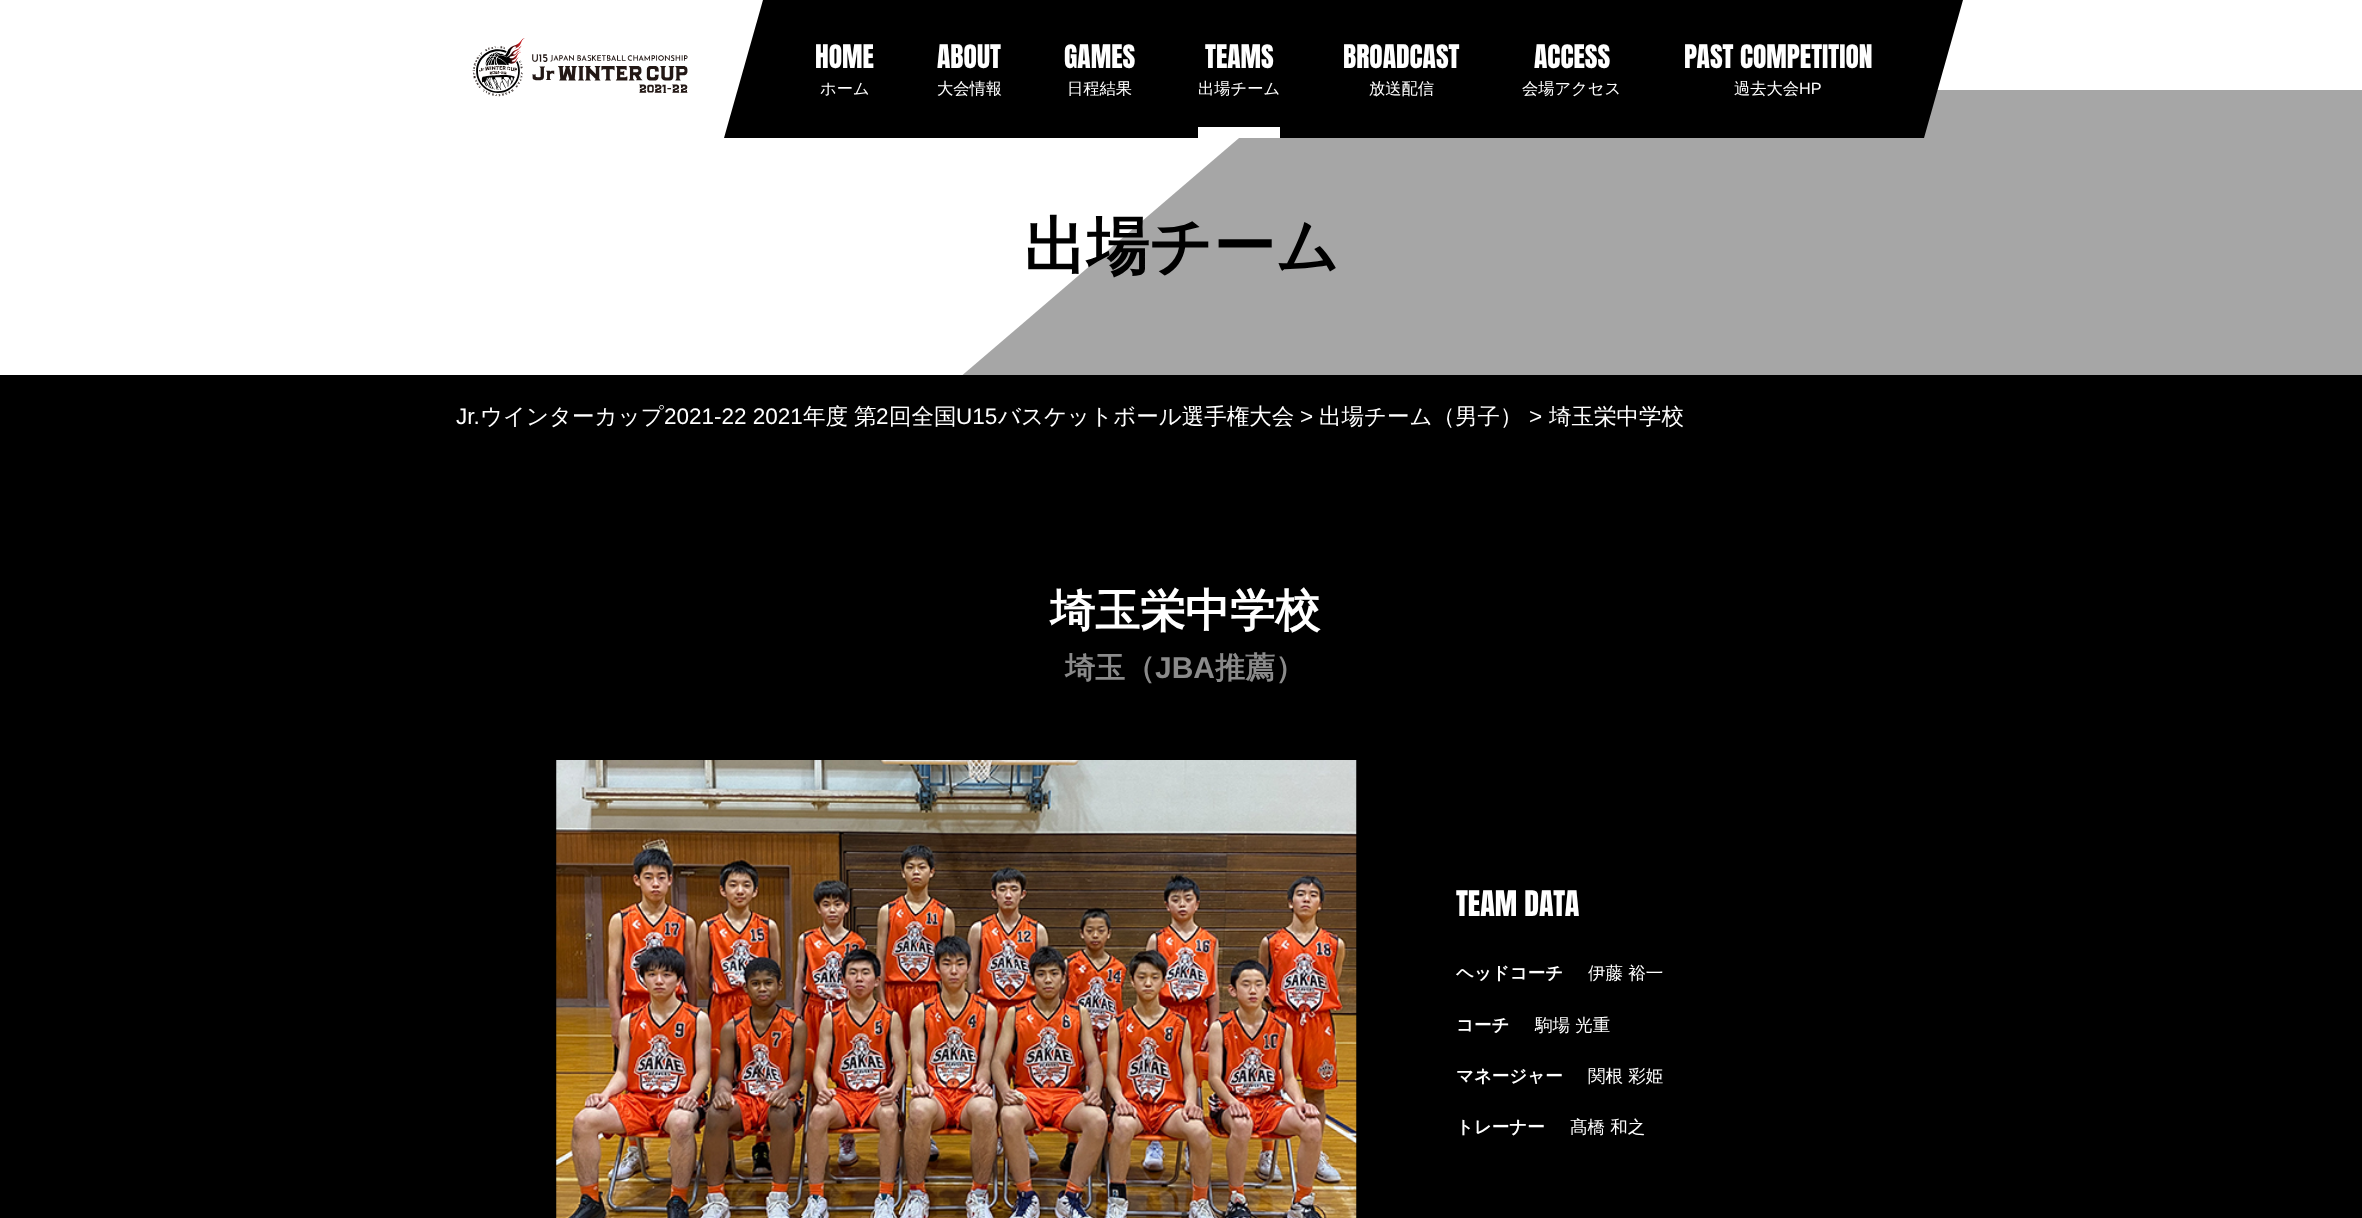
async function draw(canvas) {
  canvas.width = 2362;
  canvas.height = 1218;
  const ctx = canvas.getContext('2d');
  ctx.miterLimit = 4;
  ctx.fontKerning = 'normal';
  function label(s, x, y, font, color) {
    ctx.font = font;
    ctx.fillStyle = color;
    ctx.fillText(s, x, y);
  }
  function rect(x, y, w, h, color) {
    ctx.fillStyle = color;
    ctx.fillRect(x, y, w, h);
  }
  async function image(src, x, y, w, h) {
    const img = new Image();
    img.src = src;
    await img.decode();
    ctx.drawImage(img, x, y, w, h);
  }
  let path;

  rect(0, 0, 2362, 1218, '#fff');
  await image('assets/img1.png', 962, 90, 1400, 285);
  await image('assets/img2.png', 472, 38, 216, 59);
  ctx.fillStyle = '#000';
  path = new Path2D('M763 0H1963L1924 138H724Z');
  ctx.fill(path);
  label('HOME', 815, 68, '27.5px Anton', '#fff');
  label('ホーム', 820, 94, '500 16.25px WenQuanYi Zen Hei', '#fff');
  label('ABOUT', 937, 68, '27.5px Anton', '#fff');
  label('大会情報', 937, 94, '500 16.25px WenQuanYi Zen Hei', '#fff');
  label('GAMES', 1064, 68, '27.5px Anton', '#fff');
  label('日程結果', 1067, 94, '500 16.25px WenQuanYi Zen Hei', '#fff');
  rect(1198, 127, 82, 11, '#fff');
  label('TEAMS', 1205, 68, '27.5px Anton', '#fff');
  label('出場チーム', 1198, 94, '500 16.25px WenQuanYi Zen Hei', '#fff');
  label('BROADCAST', 1343, 68, '27.5px Anton', '#fff');
  label('放送配信', 1369, 94, '500 16.25px WenQuanYi Zen Hei', '#fff');
  label('ACCESS', 1534, 68, '27.5px Anton', '#fff');
  label('会場アクセス', 1522, 94, '500 16.25px WenQuanYi Zen Hei', '#fff');
  label('PAST COMPETITION', 1684, 68, '27.5px Anton', '#fff');
  label('過去大会', 1734, 94, '500 16.25px WenQuanYi Zen Hei', '#fff');
  label('HP', 1799, 94, '16.25px Liberation Sans', '#fff');
  label('出場チーム', 1024, 268, 'bold 62.5px WenQuanYi Zen Hei', '#000');
  rect(0, 375, 2362, 843, '#000');
  label('Jr.', 456, 424, '22.5px Liberation Sans', '#fff');
  label('ウインターカップ', 480, 424, '500 22.5px WenQuanYi Zen Hei', '#fff');
  label('2021-22 2021', 664, 424, '22.5px Liberation Sans', '#fff');
  label('年度', 803, 424, '500 22.5px WenQuanYi Zen Hei', '#fff');
  label('第', 854, 424, '500 22.5px WenQuanYi Zen Hei', '#fff');
  label('2', 876, 424, '22.5px Liberation Sans', '#fff');
  label('回全国', 889, 424, '500 22.5px WenQuanYi Zen Hei', '#fff');
  label('U15', 956, 424, '22.5px Liberation Sans', '#fff');
  label('バスケットボール選手権大会', 998, 424, '500 22.5px WenQuanYi Zen Hei', '#fff');
  label('>', 1300, 424, '22.5px Liberation Sans', '#fff');
  label('出場チーム（男子）', 1319, 424, '500 22.5px WenQuanYi Zen Hei', '#fff');
  label('>', 1529, 424, '22.5px Liberation Sans', '#fff');
  label('埼玉栄中学校', 1549, 424, '500 22.5px WenQuanYi Zen Hei', '#fff');
  label('埼玉栄中学校', 1050, 626, 'bold 45px WenQuanYi Zen Hei', '#fff');
  label('埼玉（', 1065, 678, 'bold 30px WenQuanYi Zen Hei', '#8a8a8a');
  label('JBA', 1155, 678, 'bold 30px Liberation Sans', '#8a8a8a');
  label('推薦）', 1215, 678, 'bold 30px WenQuanYi Zen Hei', '#8a8a8a');
  await image('assets/img3.png', 556, 760, 801, 458);
  label('TEAM DATA', 1456, 916, '30px Anton', '#fff');
  label('ヘッドコーチ', 1456, 979, 'bold 17.5px WenQuanYi Zen Hei', '#fff');
  label('伊藤 裕一', 1588, 979, '500 17.5px WenQuanYi Zen Hei', '#fff');
  label('コーチ', 1456, 1031, 'bold 17.5px WenQuanYi Zen Hei', '#fff');
  label('駒場 光重', 1535, 1031, '500 17.5px WenQuanYi Zen Hei', '#fff');
  label('マネージャー', 1456, 1082, 'bold 17.5px WenQuanYi Zen Hei', '#fff');
  label('関根 彩姫', 1588, 1082, '500 17.5px WenQuanYi Zen Hei', '#fff');
  label('トレーナー', 1456, 1133, 'bold 17.5px WenQuanYi Zen Hei', '#fff');
  label('髙橋 和之', 1570, 1133, '500 17.5px WenQuanYi Zen Hei', '#fff');
}

draw(document.querySelector('canvas'));
